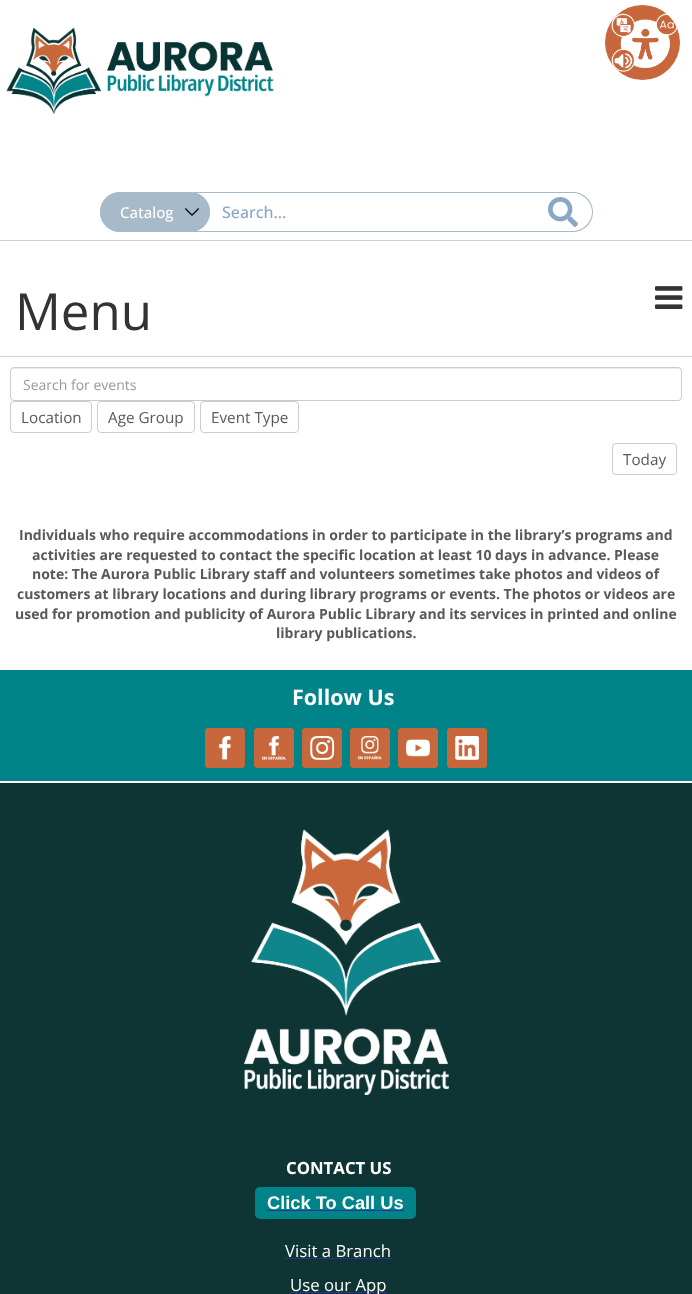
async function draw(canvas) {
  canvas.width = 692;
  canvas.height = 1294;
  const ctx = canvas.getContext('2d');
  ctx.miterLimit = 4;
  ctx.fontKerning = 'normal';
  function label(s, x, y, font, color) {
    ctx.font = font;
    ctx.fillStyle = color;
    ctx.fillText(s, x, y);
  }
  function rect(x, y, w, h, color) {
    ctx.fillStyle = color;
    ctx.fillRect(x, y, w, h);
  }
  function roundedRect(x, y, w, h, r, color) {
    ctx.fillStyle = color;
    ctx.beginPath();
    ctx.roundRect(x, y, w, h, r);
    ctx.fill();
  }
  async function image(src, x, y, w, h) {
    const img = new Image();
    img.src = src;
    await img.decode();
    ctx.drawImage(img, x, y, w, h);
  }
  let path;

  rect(0, 0, 692, 1294, '#fff');
  await image('assets/img2.png', 611, 13, 67, 58);
  ctx.fillStyle = '#c8673b';
  ctx.beginPath();
  ctx.arc(642.5, 42.5, 37.5, 0, 2 * Math.PI);
  ctx.fill();
  await image('assets/img1.png', 611, 13, 67, 59);
  await image('assets/img3.png', 6, 27, 268, 88);
  rect(194, 192, 340, 1, '#a7bac9');
  rect(194, 231, 340, 1, '#a7bac9');
  roundedRect(100, 192, 110, 40, 20, '#a7bac9');
  await image('assets/img4.png', 185, 208, 14, 8);
  ctx.beginPath();
  ctx.roundRect(100.5, 192.5, 109, 39, 19.5);
  ctx.strokeStyle = '#a7bac9';
  ctx.stroke();
  label('Catalog', 120, 218, '500 15px Open Sans', '#fff');
  label('Search...', 222, 218, '500 16px Open Sans', '#8ba6c7');
  ctx.fillStyle = '#a7bac9';
  path = new Path2D('M534 192H573C584 192 593 201 593 212C593 223 584 232 573 232H534ZM534 193H573C583 193 592 202 592 212C592 222 583 231 573 231H534Z');
  ctx.fill(path, 'evenodd');
  await image('assets/img5.png', 548, 197, 30, 30);
  rect(0, 240, 692, 1, '#c7d4df');
  rect(0, 356, 692, 1, '#c7d4df');
  label('Menu', 15, 330, '51px Open Sans', '#333');
  await image('assets/img6.png', 655, 286, 28, 23);
  ctx.fillStyle = '#ececec';
  path = new Path2D('M14 369H678C680 369 681 370 681 372V371C681 369 680 368 678 368H14C12 368 11 369 11 371V372C11 370 12 369 14 369Z');
  ctx.fill(path);
  ctx.beginPath();
  ctx.roundRect(10.5, 367.5, 671, 33, 3.5);
  ctx.strokeStyle = '#ccc';
  ctx.stroke();
  label('Search for events', 23, 390, '14px Open Sans', '#999');
  ctx.beginPath();
  ctx.roundRect(10.5, 401.5, 81, 31, 3.5);
  ctx.stroke();
  label('Location', 21, 423, '15.25px Open Sans', '#595959');
  ctx.beginPath();
  ctx.roundRect(97.5, 401.5, 97, 31, 3.5);
  ctx.stroke();
  label('Age Group', 108, 423, '15.25px Open Sans', '#595959');
  ctx.beginPath();
  ctx.roundRect(200.5, 401.5, 98, 31, 3.5);
  ctx.stroke();
  label('Event Type', 211, 423, '15.25px Open Sans', '#595959');
  ctx.beginPath();
  ctx.roundRect(612.5, 443.5, 64, 31, 3.5);
  ctx.stroke();
  label('Today', 623, 465, '15.25px Open Sans', '#595959');
  label('Individuals who require accommodations in order to participate in the library’s programs and', 19, 540, 'bold 14px Open Sans', '#595959');
  label('activities are requested to contact the specific location at least 10 days in advance. Please', 32, 560, 'bold 14px Open Sans', '#595959');
  label('note: The Aurora Public Library staff and volunteers sometimes take photos and videos of', 32, 579, 'bold 14px Open Sans', '#595959');
  label('customers at library locations and during library programs or events. The photos or videos are', 17, 599, 'bold 14px Open Sans', '#595959');
  label('used for promotion and publicity of Aurora Public Library and its services in printed and online', 15, 619, 'bold 14px Open Sans', '#595959');
  label('library publications.', 276, 638, 'bold 14px Open Sans', '#595959');
  rect(0, 670, 692, 111, '#00848a');
  label('Follow Us', 292, 705, 'bold 21.5px Open Sans', '#fff');
  await image('assets/img7.png', 205, 728, 40, 40);
  await image('assets/img8.png', 254, 728, 40, 40);
  await image('assets/img9.png', 302, 728, 40, 40);
  await image('assets/img10.png', 350, 728, 40, 40);
  await image('assets/img11.png', 398, 728, 40, 40);
  await image('assets/img12.png', 447, 728, 40, 40);
  rect(0, 783, 692, 511, '#0e3534');
  await image('assets/img13.png', 244, 829, 206, 266);
  label('CONTACT US', 286, 1174, 'bold 16.75px Open Sans', '#fff');
  roundedRect(255, 1187, 161, 32, 5, '#00848a');
  label('Click To Call Us', 267, 1209, 'bold 18.25px Liberation Sans', '#fff');
  rect(267, 1210, 137, 1, '#2d3091');
  label('Visit a Branch', 285, 1257, '16.75px Open Sans', '#fff');
  rect(285, 1258, 107, 1, '#2d3091');
  rect(290, 1292, 97, 1, '#2d3091');
  label('Use our App', 290, 1291, '16.75px Open Sans', '#fff');
}

draw(document.querySelector('canvas'));
